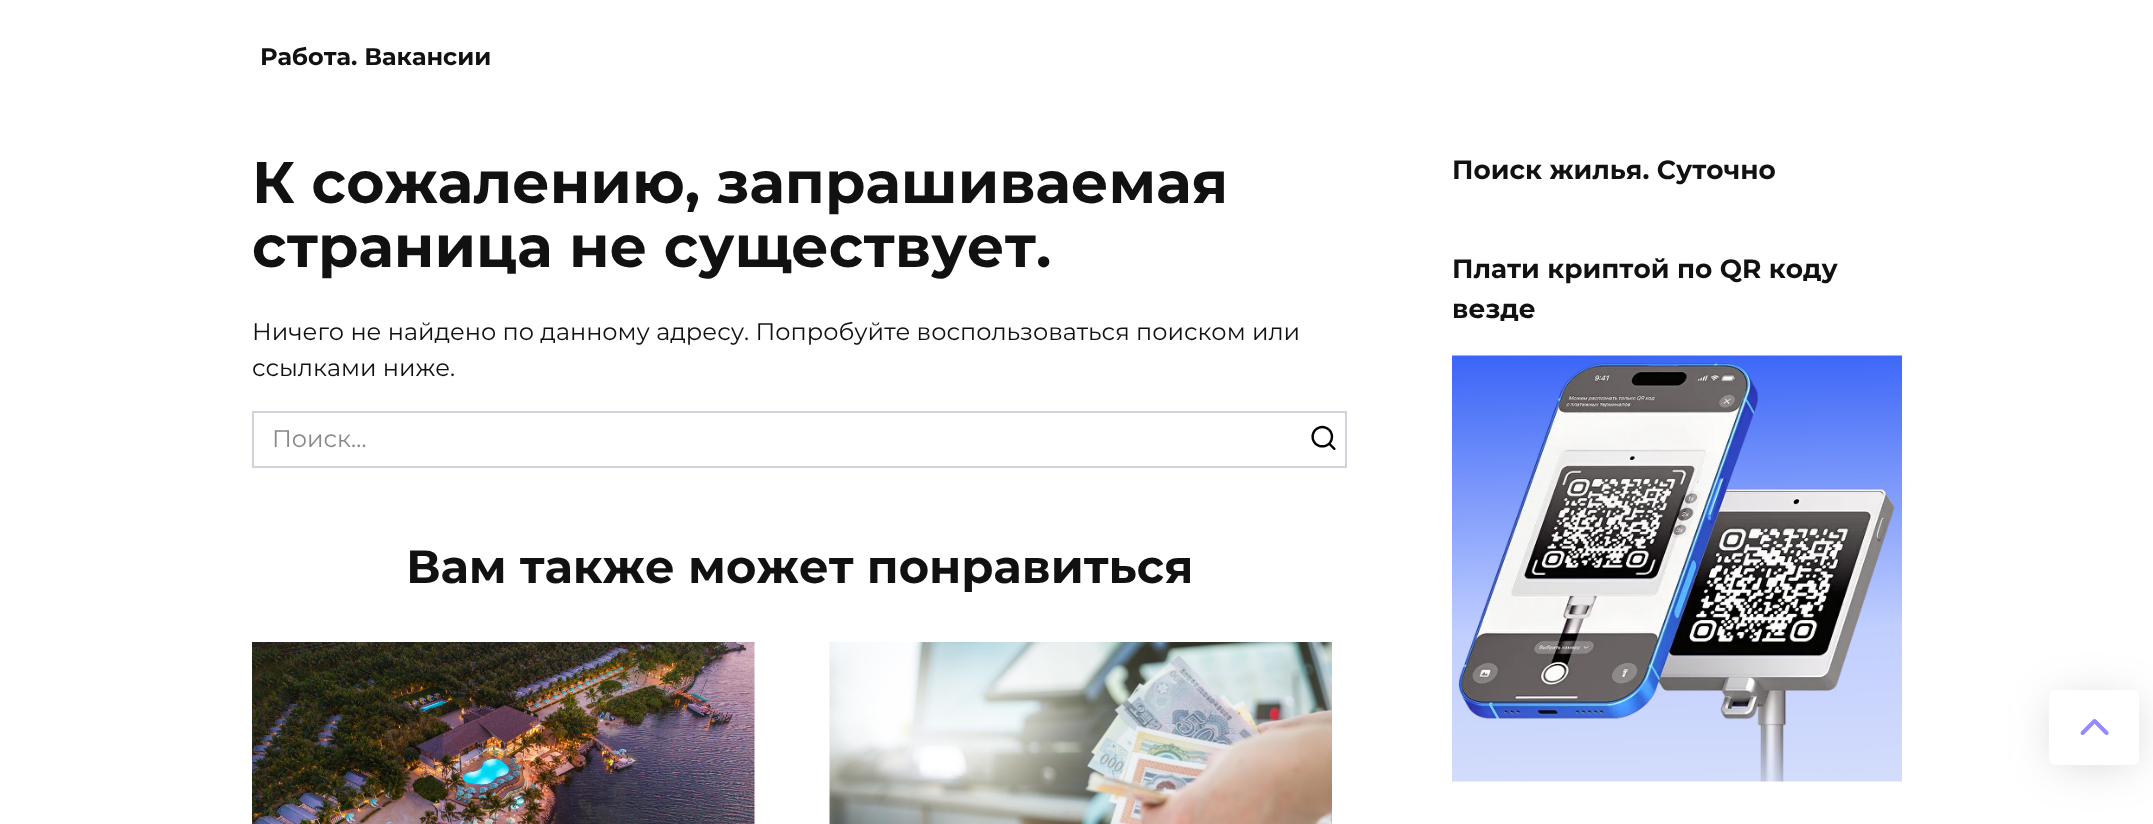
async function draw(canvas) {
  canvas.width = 2153;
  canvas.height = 824;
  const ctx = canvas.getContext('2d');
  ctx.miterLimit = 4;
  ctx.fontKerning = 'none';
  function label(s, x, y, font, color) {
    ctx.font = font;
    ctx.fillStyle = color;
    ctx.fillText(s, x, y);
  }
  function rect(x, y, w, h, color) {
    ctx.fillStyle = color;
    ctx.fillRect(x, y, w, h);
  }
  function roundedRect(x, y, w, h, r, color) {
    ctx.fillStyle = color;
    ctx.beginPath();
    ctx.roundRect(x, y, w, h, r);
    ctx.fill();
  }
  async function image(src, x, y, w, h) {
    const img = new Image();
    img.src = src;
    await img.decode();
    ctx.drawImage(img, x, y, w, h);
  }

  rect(0, 0, 2153, 824, '#fff');
  label('Работа. Вакансии', 260, 65, 'bold 24px Montserrat', '#111');
  label('К сожалению, запрашиваемая', 252, 203, 'bold 58.5px Montserrat', '#111');
  label('страница не существует.', 252, 267, 'bold 58.5px Montserrat', '#111');
  label('Ничего не найдено по данному адресу. Попробуйте воспользоваться поиском или', 252, 340, '24px Montserrat', '#111');
  label('ссылками ниже.', 252, 376, '24px Montserrat', '#111');
  ctx.strokeStyle = '#ced4da';
  ctx.lineWidth = 2;
  ctx.strokeRect(253, 412, 1093, 55);
  label('Поиск…', 272, 447, '24px Montserrat', '#888');
  label('🔍', 1309, 450, '29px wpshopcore', '#000');
  label('Вам также может понравиться', 406, 583, 'bold 46.5px Montserrat', '#111');
  await image('assets/img1.png', 252, 642, 503, 182);
  await image('assets/img2.png', 829, 642, 503, 182);
  label('Поиск жилья. Суточно', 1452, 179, 'bold 26.4px Montserrat', '#111');
  label('Плати криптой по QR коду', 1452, 278, 'bold 26.4px Montserrat', '#111');
  label('везде', 1452, 318, 'bold 26.4px Montserrat', '#111');
  await image('assets/img3.png', 1452, 355, 450, 427);
  ctx.fillStyle = '#6666664d';
  ctx.filter = 'blur(22.5px)';
  ctx.beginPath();
  ctx.rect(2057, 702, 75, 60);
  ctx.fill();
  ctx.filter = 'none';
  roundedRect(2049, 690, 90, 75, 6, '#fff');
  label('︿', 2070, 747, '48px wpshopcore', '#9489fe');
}

draw(document.querySelector('canvas'));
